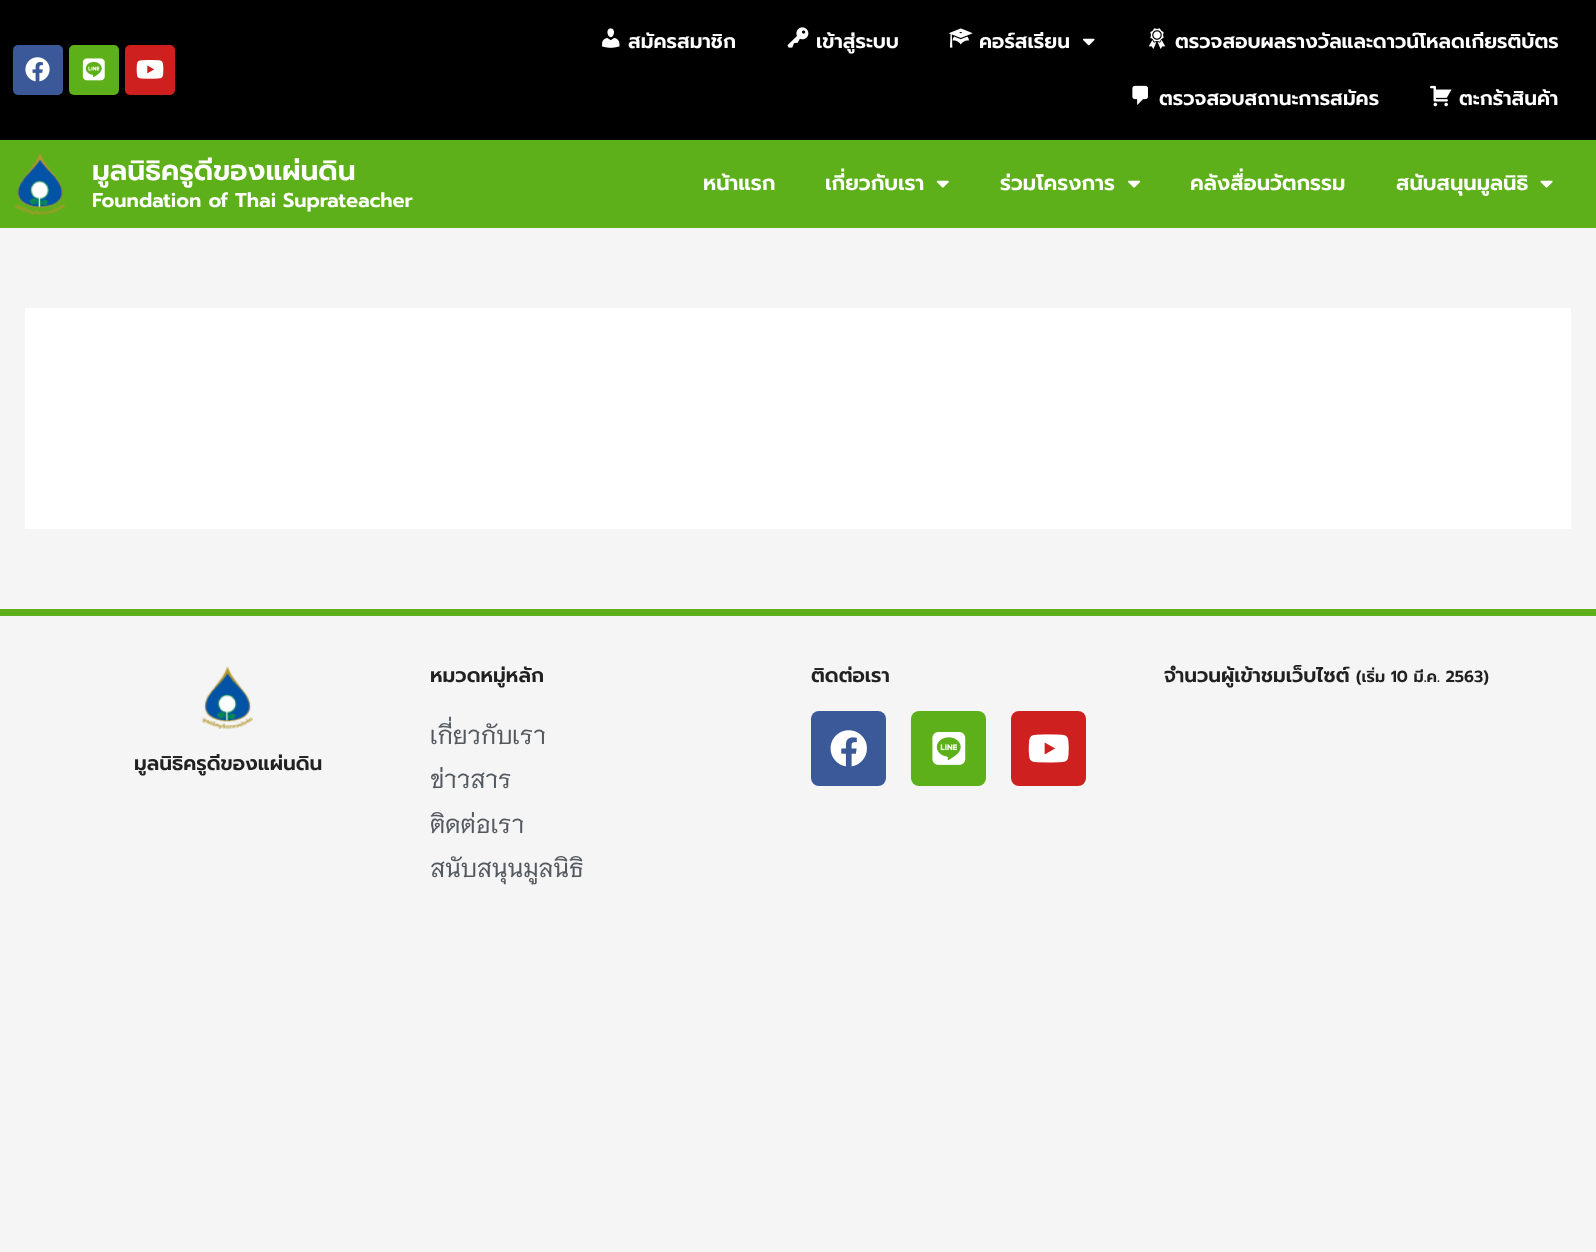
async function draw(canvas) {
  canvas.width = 1596;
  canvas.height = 1252;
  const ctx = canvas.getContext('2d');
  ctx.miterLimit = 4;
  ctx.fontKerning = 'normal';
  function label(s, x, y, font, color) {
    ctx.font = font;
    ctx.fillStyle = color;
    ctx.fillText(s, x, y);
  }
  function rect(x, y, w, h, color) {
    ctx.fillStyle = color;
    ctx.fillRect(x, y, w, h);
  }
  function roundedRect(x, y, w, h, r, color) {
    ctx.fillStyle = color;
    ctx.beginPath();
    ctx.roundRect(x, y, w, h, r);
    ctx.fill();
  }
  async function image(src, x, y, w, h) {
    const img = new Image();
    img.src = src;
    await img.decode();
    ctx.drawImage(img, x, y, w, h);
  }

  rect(0, 0, 1596, 1252, '#f5f5f5');
  rect(0, 0, 1596, 140, '#000');
  roundedRect(13, 45, 50, 50, 5, '#3b5998');
  await image('assets/img1.png', 25, 57, 25, 25);
  roundedRect(69, 45, 50, 50, 5, '#5eb01a');
  await image('assets/img2.png', 82, 58, 23, 23);
  roundedRect(125, 45, 50, 50, 5, '#cd201f');
  await image('assets/img3.png', 136, 60, 28, 19);
  await image('assets/img4.png', 602, 28, 18, 20);
  label('สมัครสมาชิก', 628, 48, '600 20px Prompt', '#fff');
  await image('assets/img5.png', 787, 27, 22, 21);
  label('เข้าสู่ระบบ', 816, 48, '600 20px Prompt', '#fff');
  await image('assets/img6.png', 948, 28, 25, 20);
  label('คอร์สเรียน', 979, 48, '600 20px Prompt', '#fff');
  await image('assets/img7.png', 1083, 38, 12, 8);
  await image('assets/img8.png', 1148, 28, 18, 21);
  label('ตรวจสอบผลรางวัลและดาวน์โหลดเกียรติบัตร', 1175, 48, '600 20px Prompt', '#fff');
  await image('assets/img9.png', 1132, 85, 16, 20);
  label('ตรวจสอบสถานะการสมัคร', 1159, 105, '600 20px Prompt', '#fff');
  await image('assets/img10.png', 1430, 85, 22, 22);
  label('ตะกร้าสินค้า', 1459, 105, '600 20px Prompt', '#fff');
  rect(0, 140, 1596, 88, '#5eb01a');
  await image('assets/img11.png', 15, 152, 50, 63);
  label('มูลนิธิครูดีของแผ่นดิน', 92, 180, '600 28px Prompt', '#fff');
  label('Foundation of Thai Suprateacher', 92, 207, '600 20px Prompt', '#fff');
  label('หน้าแรก', 703, 190, '600 21px Prompt', '#fff');
  label('เกี่ยวกับเรา', 825, 190, '600 21px Prompt', '#fff');
  await image('assets/img12.png', 936, 180, 13, 8);
  label('ร่วมโครงการ', 1000, 190, '600 21px Prompt', '#fff');
  await image('assets/img13.png', 1128, 180, 13, 8);
  label('คลังสื่อนวัตกรรม', 1190, 190, '600 21px Prompt', '#fff');
  label('สนับสนุนมูลนิธิ', 1396, 190, '600 21px Prompt', '#fff');
  await image('assets/img14.png', 1540, 180, 13, 8);
  rect(25, 308, 1546, 221, '#fff');
  rect(0, 609, 1596, 7, '#5eb01a');
  label('หมวดหมู่หลัก', 430, 682, '600 20px Prompt', '#212121');
  label('เกี่ยวกับเรา', 430, 744, '24px Niramit', '#54595f');
  label('ข่าวสาร', 430, 788, '24px Niramit', '#54595f');
  label('ติดต่อเรา', 430, 833, '24px Niramit', '#54595f');
  label('สนับสนุนมูลนิธิ', 430, 877, '24px Niramit', '#54595f');
  label('ติดต่อเรา', 811, 682, '600 20px Prompt', '#212121');
  roundedRect(811, 711, 75, 75, 8, '#3b5998');
  await image('assets/img15.png', 830, 730, 37, 37);
  roundedRect(911, 711, 75, 75, 8, '#5eb01a');
  await image('assets/img16.png', 932, 732, 34, 33);
  roundedRect(1011, 711, 75, 75, 8, '#cd201f');
  await image('assets/img17.png', 1028, 734, 41, 29);
  label('จำนวนผู้เข้าชมเว็บไซต์', 1164, 682, '600 20px Prompt', '#212121');
  label('(เริ่ม 10 มี.ค. 2563)', 1356, 682, '600 16px Prompt', '#212121');
  await image('assets/img18.png', 202, 666, 51, 63);
  label('มูลนิธิครูดีของแผ่นดิน', 134, 770, '600 20px Prompt', '#212121');
}

draw(document.querySelector('canvas'));
